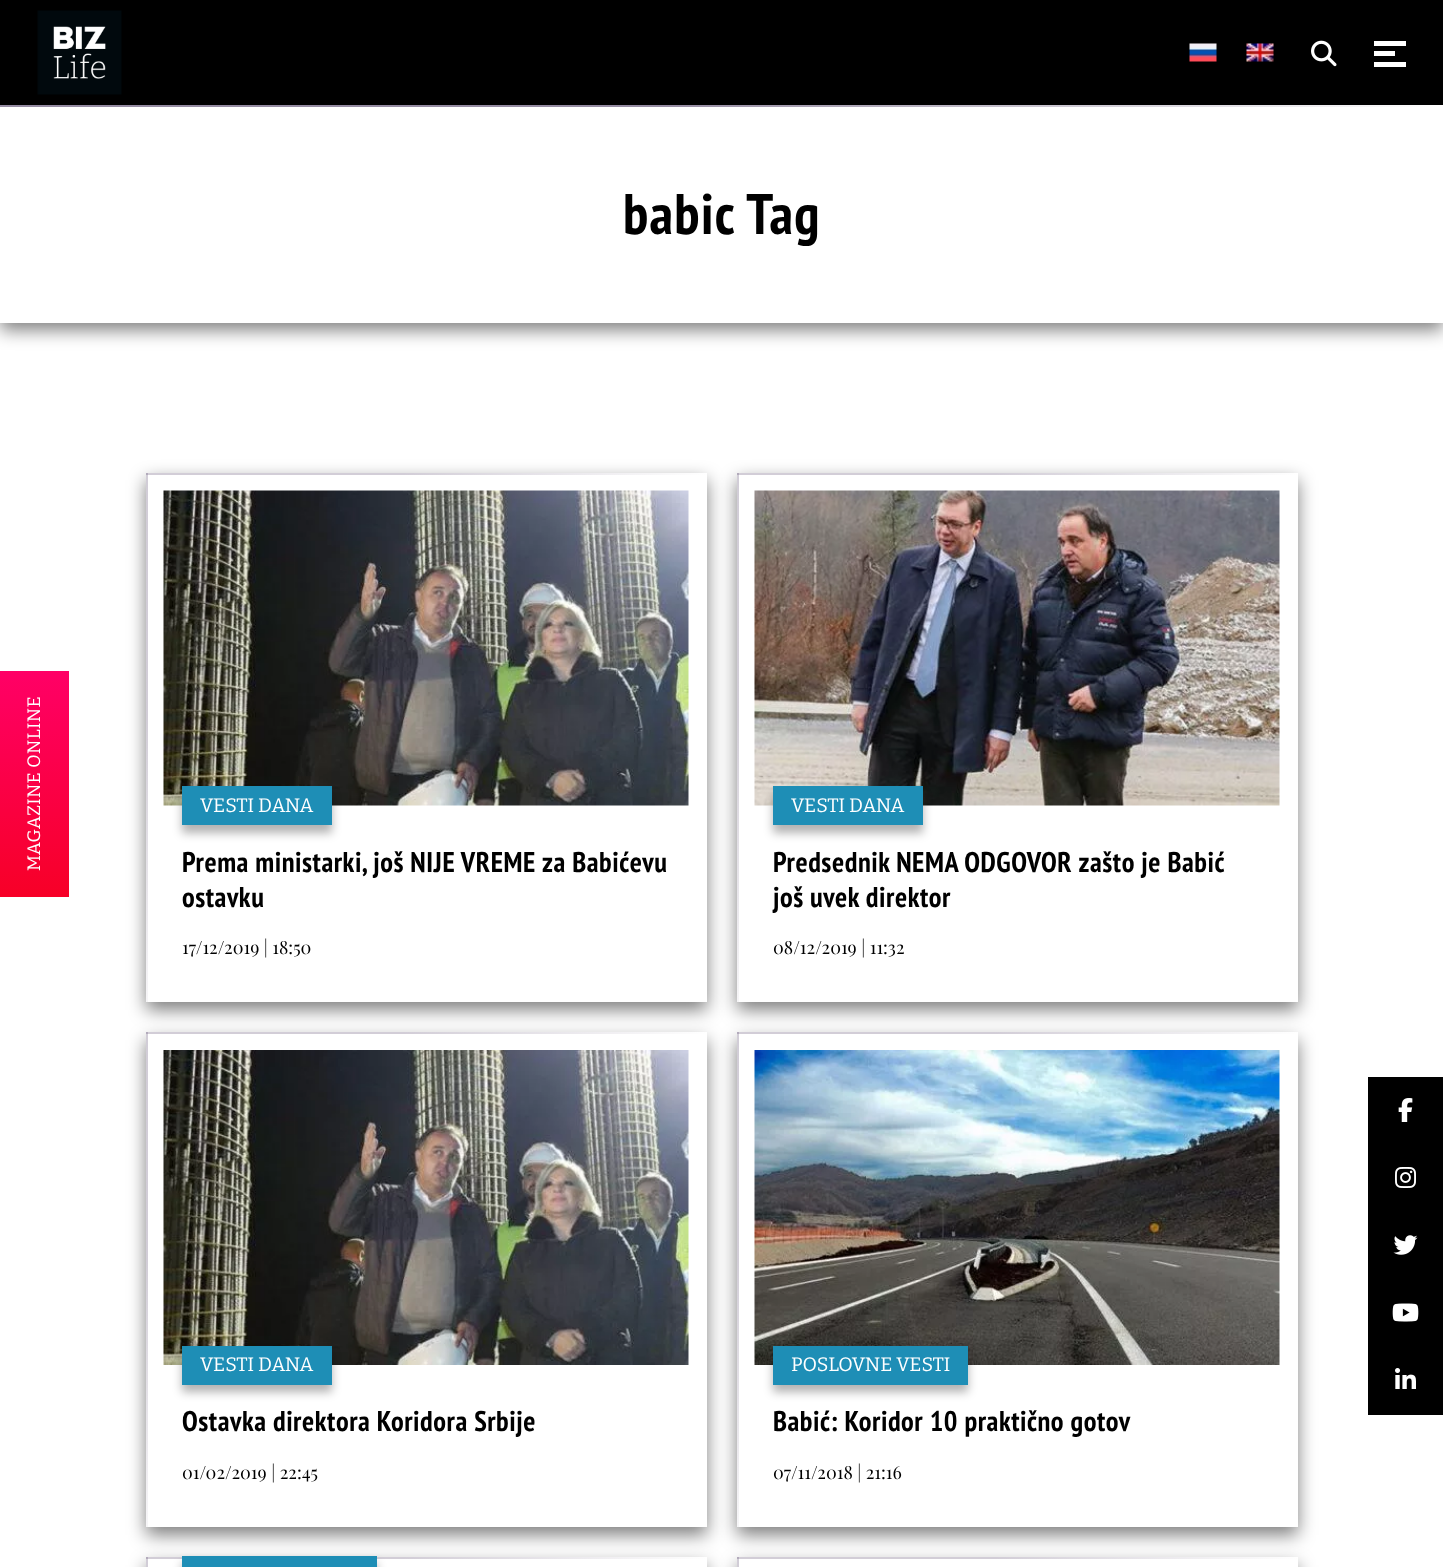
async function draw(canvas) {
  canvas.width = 1443;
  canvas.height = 1567;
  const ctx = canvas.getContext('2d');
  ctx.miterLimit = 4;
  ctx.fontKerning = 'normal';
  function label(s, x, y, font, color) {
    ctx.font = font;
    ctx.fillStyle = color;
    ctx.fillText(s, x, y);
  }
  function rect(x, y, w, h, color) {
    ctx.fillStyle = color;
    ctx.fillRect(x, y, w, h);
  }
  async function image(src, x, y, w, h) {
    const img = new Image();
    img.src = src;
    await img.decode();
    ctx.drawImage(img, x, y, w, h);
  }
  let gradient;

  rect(0, 0, 1443, 1567, '#fff');
  gradient = ctx.createLinearGradient(-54, 671, -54, 897);
  gradient.addColorStop(0, '#f06');
  gradient.addColorStop(1, '#f70027');
  ctx.fillStyle = gradient;
  ctx.fillRect(0, 671, 69, 226);
  ctx.letterSpacing = '0.4px';
  ctx.font = '18px Bitter';
  ctx.fillStyle = '#fff';
  ctx.save();
  ctx.translate(40, 871);
  ctx.rotate(-90 * Math.PI / 180);
  ctx.fillText('MAGAZINE ONLINE', 0, 0);
  ctx.restore();
  ctx.fillStyle = '#00000080';
  ctx.filter = 'blur(9px)';
  ctx.beginPath();
  ctx.rect(0, 113, 1443, 217);
  ctx.fill();
  ctx.filter = 'none';
  rect(0, 0, 1443, 105, '#000');
  await image('assets/img1.png', 37, 10, 85, 85);
  await image('assets/img2.png', 1189, 43, 28, 19);
  await image('assets/img3.png', 1246, 43, 28, 19);
  await image('assets/img4.png', 1311, 40, 26, 27);
  rect(1374, 41, 32, 5, '#fff');
  rect(1374, 51, 21, 5, '#fff');
  rect(1374, 62, 32, 5, '#fff');
  rect(0, 107, 1443, 216, '#fff');
  gradient = ctx.createLinearGradient(0, 106, 1443, 106);
  gradient.addColorStop(0, '#958ba2');
  gradient.addColorStop(0.46, '#958ba2');
  gradient.addColorStop(1, '#fff');
  ctx.fillStyle = gradient;
  ctx.fillRect(0, 105, 1443, 2);
  ctx.letterSpacing = '1.25px';
  label('babic Tag', 623, 234, 'bold 57px PT Sans Narrow', '#000');
  ctx.fillStyle = '#00000080';
  ctx.filter = 'blur(9px)';
  ctx.beginPath();
  ctx.rect(146, 480, 561, 530);
  ctx.fill();
  ctx.filter = 'none';
  rect(146, 475, 561, 527, '#fff');
  gradient = ctx.createLinearGradient(146, 473, 707, 473);
  gradient.addColorStop(0, '#d2cdd7');
  gradient.addColorStop(0.46, '#d2cdd7');
  gradient.addColorStop(1, '#fff');
  ctx.fillStyle = gradient;
  ctx.fillRect(146, 473, 561, 2);
  gradient = ctx.createLinearGradient(146, 473, 146, 1002);
  gradient.addColorStop(0, '#68597a4d');
  gradient.addColorStop(0.46, '#68597a4d');
  gradient.addColorStop(1, '#68597a0f');
  ctx.fillStyle = gradient;
  ctx.fillRect(146, 473, 2, 529);
  await image('assets/img5.png', 163, 490, 526, 316);
  ctx.fillStyle = '#0000004d';
  ctx.filter = 'blur(5px)';
  ctx.beginPath();
  ctx.rect(182, 794, 150, 39);
  ctx.fill();
  ctx.filter = 'none';
  rect(182, 786, 150, 39, '#1e8eb6');
  ctx.letterSpacing = '0px';
  label('VESTI DANA', 200, 812, '19.5px Bitter', '#fff');
  ctx.letterSpacing = '0.55px';
  label('Prema ministarki, još NIJE VREME za Babićevu', 182, 872, 'bold 28.5px PT Sans Narrow', '#000');
  label('ostavku', 182, 907, 'bold 28.5px PT Sans Narrow', '#000');
  ctx.letterSpacing = '0px';
  label('17/12/2019 | 18:50', 182, 954, '18px Playfair Display', '#000');
  ctx.fillStyle = '#00000080';
  ctx.filter = 'blur(9px)';
  ctx.beginPath();
  ctx.rect(737, 480, 561, 530);
  ctx.fill();
  ctx.filter = 'none';
  rect(737, 475, 561, 527, '#fff');
  gradient = ctx.createLinearGradient(737, 473, 1298, 473);
  gradient.addColorStop(0, '#d2cdd7');
  gradient.addColorStop(0.46, '#d2cdd7');
  gradient.addColorStop(1, '#fff');
  ctx.fillStyle = gradient;
  ctx.fillRect(737, 473, 561, 2);
  gradient = ctx.createLinearGradient(737, 473, 737, 1002);
  gradient.addColorStop(0, '#68597a4d');
  gradient.addColorStop(0.46, '#68597a4d');
  gradient.addColorStop(1, '#68597a0f');
  ctx.fillStyle = gradient;
  ctx.fillRect(737, 473, 2, 529);
  await image('assets/img6.png', 754, 490, 526, 316);
  ctx.fillStyle = '#0000004d';
  ctx.filter = 'blur(5px)';
  ctx.beginPath();
  ctx.rect(773, 794, 150, 39);
  ctx.fill();
  ctx.filter = 'none';
  rect(773, 786, 150, 39, '#1e8eb6');
  label('VESTI DANA', 791, 812, '19.5px Bitter', '#fff');
  ctx.letterSpacing = '0.55px';
  label('Predsednik NEMA ODGOVOR zašto je Babić', 773, 872, 'bold 28.5px PT Sans Narrow', '#000');
  label('još uvek direktor', 773, 907, 'bold 28.5px PT Sans Narrow', '#000');
  ctx.letterSpacing = '0px';
  label('08/12/2019 | 11:32', 773, 954, '18px Playfair Display', '#000');
  ctx.fillStyle = '#00000080';
  ctx.filter = 'blur(9px)';
  ctx.beginPath();
  ctx.rect(146, 1040, 561, 495);
  ctx.fill();
  ctx.filter = 'none';
  rect(146, 1034, 561, 493, '#fff');
  gradient = ctx.createLinearGradient(146, 1033, 707, 1033);
  gradient.addColorStop(0, '#d2cdd7');
  gradient.addColorStop(0.46, '#d2cdd7');
  gradient.addColorStop(1, '#fff');
  ctx.fillStyle = gradient;
  ctx.fillRect(146, 1032, 561, 2);
  gradient = ctx.createLinearGradient(146, 1032, 146, 1527);
  gradient.addColorStop(0, '#68597a4d');
  gradient.addColorStop(0.46, '#68597a4d');
  gradient.addColorStop(1, '#68597a0f');
  ctx.fillStyle = gradient;
  ctx.fillRect(146, 1032, 2, 495);
  await image('assets/img7.png', 163, 1050, 526, 315);
  ctx.fillStyle = '#0000004d';
  ctx.filter = 'blur(5px)';
  ctx.beginPath();
  ctx.rect(182, 1353, 150, 39);
  ctx.fill();
  ctx.filter = 'none';
  rect(182, 1346, 150, 39, '#1e8eb6');
  label('VESTI DANA', 200, 1371, '19.5px Bitter', '#fff');
  ctx.letterSpacing = '0.55px';
  label('Ostavka direktora Koridora Srbije', 182, 1431, 'bold 28.5px PT Sans Narrow', '#000');
  ctx.letterSpacing = '0px';
  label('01/02/2019 | 22:45', 182, 1479, '18px Playfair Display', '#000');
  ctx.fillStyle = '#00000080';
  ctx.filter = 'blur(9px)';
  ctx.beginPath();
  ctx.rect(737, 1040, 561, 495);
  ctx.fill();
  ctx.filter = 'none';
  rect(737, 1034, 561, 493, '#fff');
  gradient = ctx.createLinearGradient(737, 1033, 1298, 1033);
  gradient.addColorStop(0, '#d2cdd7');
  gradient.addColorStop(0.46, '#d2cdd7');
  gradient.addColorStop(1, '#fff');
  ctx.fillStyle = gradient;
  ctx.fillRect(737, 1032, 561, 2);
  gradient = ctx.createLinearGradient(737, 1032, 737, 1527);
  gradient.addColorStop(0, '#68597a4d');
  gradient.addColorStop(0.46, '#68597a4d');
  gradient.addColorStop(1, '#68597a0f');
  ctx.fillStyle = gradient;
  ctx.fillRect(737, 1032, 2, 495);
  await image('assets/img8.png', 754, 1050, 526, 315);
  ctx.fillStyle = '#0000004d';
  ctx.filter = 'blur(5px)';
  ctx.beginPath();
  ctx.rect(773, 1353, 195, 39);
  ctx.fill();
  ctx.filter = 'none';
  rect(773, 1346, 195, 39, '#1e8eb6');
  label('POSLOVNE VESTI', 791, 1371, '19.5px Bitter', '#fff');
  ctx.letterSpacing = '0.55px';
  label('Babić: Koridor 10 praktično gotov', 773, 1431, 'bold 28.5px PT Sans Narrow', '#000');
  ctx.letterSpacing = '0px';
  label('07/11/2018 | 21:16', 773, 1479, '18px Playfair Display', '#000');
  ctx.fillStyle = '#00000080';
  ctx.filter = 'blur(9px)';
  ctx.beginPath();
  ctx.rect(146, 1565, 561, 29);
  ctx.fill();
  ctx.filter = 'none';
  rect(146, 1559, 561, 8, '#fff');
  gradient = ctx.createLinearGradient(146, 1558, 707, 1558);
  gradient.addColorStop(0, '#d2cdd7');
  gradient.addColorStop(0.46, '#d2cdd7');
  gradient.addColorStop(1, '#fff');
  ctx.fillStyle = gradient;
  ctx.fillRect(146, 1557, 561, 2);
  ctx.fillStyle = '#0000004d';
  ctx.filter = 'blur(5px)';
  ctx.beginPath();
  ctx.rect(182, 1563, 195, 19);
  ctx.fill();
  ctx.filter = 'none';
  rect(182, 1556, 195, 11, '#1e8eb6');
  gradient = ctx.createLinearGradient(146, 1557, 146, 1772);
  gradient.addColorStop(0, '#68597a4d');
  gradient.addColorStop(0.46, '#68597a4d');
  gradient.addColorStop(1, '#68597a0f');
  ctx.fillStyle = gradient;
  ctx.fillRect(146, 1557, 2, 10);
  ctx.fillStyle = '#00000080';
  ctx.filter = 'blur(9px)';
  ctx.beginPath();
  ctx.rect(737, 1565, 561, 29);
  ctx.fill();
  ctx.filter = 'none';
  rect(737, 1559, 561, 8, '#fff');
  gradient = ctx.createLinearGradient(737, 1558, 1298, 1558);
  gradient.addColorStop(0, '#d2cdd7');
  gradient.addColorStop(0.46, '#d2cdd7');
  gradient.addColorStop(1, '#fff');
  ctx.fillStyle = gradient;
  ctx.fillRect(737, 1557, 561, 2);
  gradient = ctx.createLinearGradient(737, 1557, 737, 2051);
  gradient.addColorStop(0, '#68597a4d');
  gradient.addColorStop(0.46, '#68597a4d');
  gradient.addColorStop(1, '#68597a0f');
  ctx.fillStyle = gradient;
  ctx.fillRect(737, 1557, 2, 10);
  rect(1368, 1077, 75, 338, '#000');
  await image('assets/img9.png', 1398, 1098, 15, 24);
  await image('assets/img10.png', 1395, 1167, 21, 21);
  await image('assets/img11.png', 1393, 1235, 25, 20);
  await image('assets/img12.png', 1392, 1303, 27, 19);
  await image('assets/img13.png', 1395, 1368, 21, 21);
}

draw(document.querySelector('canvas'));
